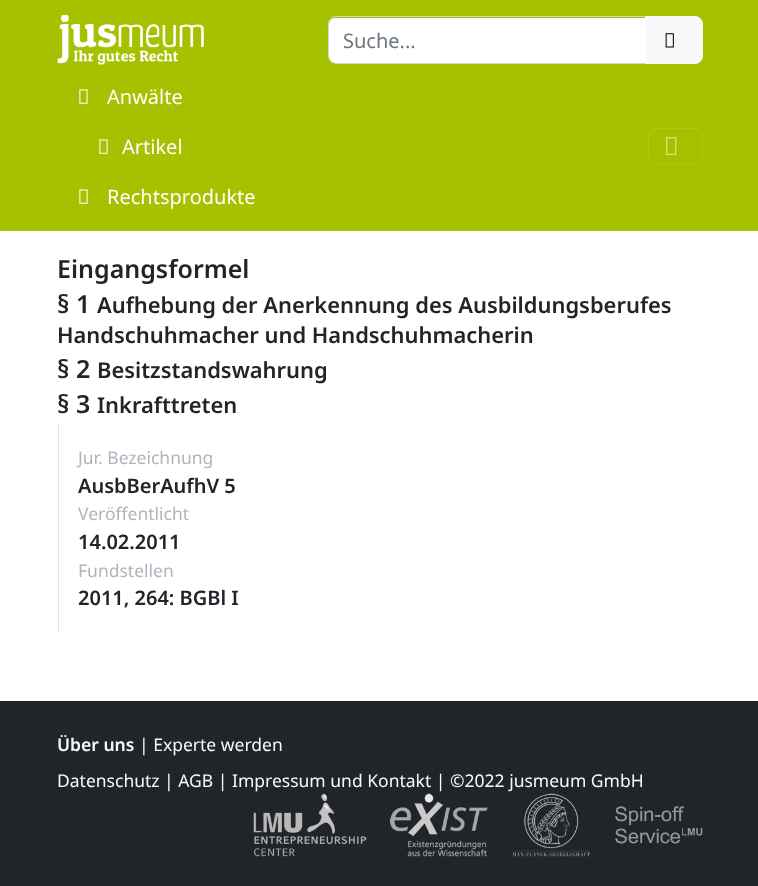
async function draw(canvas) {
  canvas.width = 758;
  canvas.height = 886;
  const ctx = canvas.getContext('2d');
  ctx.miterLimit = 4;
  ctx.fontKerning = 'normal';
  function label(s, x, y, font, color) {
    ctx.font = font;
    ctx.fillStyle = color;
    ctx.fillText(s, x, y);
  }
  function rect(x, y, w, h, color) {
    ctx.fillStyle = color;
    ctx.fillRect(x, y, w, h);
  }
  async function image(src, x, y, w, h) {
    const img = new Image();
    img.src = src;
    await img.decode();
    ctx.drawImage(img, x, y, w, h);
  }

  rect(0, 0, 758, 886, '#fff');
  rect(0, 0, 758, 231, '#a5c100');
  await image('assets/img1.png', 57, 15, 147, 50);
  ctx.fillStyle = '#fff';
  ctx.beginPath();
  ctx.roundRect(329, 18, 316, 45, [6, 0, 0, 6]);
  ctx.fill();
  ctx.beginPath();
  ctx.roundRect(328.5, 16.5, 317, 47, [7.5, 0, 0, 7.5]);
  ctx.strokeStyle = '#ced4da';
  ctx.stroke();
  label('Suche...', 343, 48, '20px Noto Sans', '#6c757d');
  ctx.fillStyle = '#f8f9fa';
  ctx.beginPath();
  ctx.roundRect(645.5, 16.5, 57, 47, [0, 7.5, 7.5, 0]);
  ctx.fill();
  ctx.strokeStyle = '#f8f9fa';
  ctx.stroke();
  await image('assets/img2.png', 665, 33, 9, 15);
  await image('assets/img3.png', 79, 89, 9, 15);
  label('Anwälte', 107, 104, '20px Noto Sans', '#fff');
  await image('assets/img3.png', 99, 139, 9, 15);
  label('Artikel', 122, 154, '20px Noto Sans', '#fff');
  await image('assets/img3.png', 79, 189, 9, 15);
  label('Rechtsprodukte', 107, 204, '20px Noto Sans', '#fff');
  ctx.beginPath();
  ctx.roundRect(648.5, 128.5, 54, 36, 7.5);
  ctx.strokeStyle = '#aec71a';
  ctx.stroke();
  await image('assets/img4.png', 666, 137, 11, 18);
  label('Eingangsformel', 57, 278, '600 25px Noto Sans', '#212529');
  label('§ 1', 57, 313, '600 25px Noto Sans', '#212529');
  label('Aufhebung der Anerkennung des Ausbildungsberufes', 97, 313, '600 21.9px Noto Sans', '#212529');
  label('Handschuhmacher und Handschuhmacherin', 57, 343, '600 21.9px Noto Sans', '#212529');
  label('§ 2', 57, 378, '600 25px Noto Sans', '#212529');
  label('Besitzstandswahrung', 97, 378, '600 21.9px Noto Sans', '#212529');
  label('§ 3', 57, 413, '600 25px Noto Sans', '#212529');
  label('Inkrafttreten', 97, 413, '600 21.9px Noto Sans', '#212529');
  rect(58, 424, 1, 209, '#dee2e6');
  label('Jur. Bezeichnung', 78, 464, '17.5px Noto Sans', '#adb5bd');
  label('AusbBerAufhV 5', 78, 493, '600 20px Noto Sans', '#212529');
  label('Veröffentlicht', 78, 520, '17.5px Noto Sans', '#adb5bd');
  label('14.02.2011', 78, 549, '600 20px Noto Sans', '#212529');
  label('Fundstellen', 78, 577, '17.5px Noto Sans', '#adb5bd');
  label('2011, 264: BGBl I', 78, 605, '600 20px Noto Sans', '#212529');
  rect(0, 701, 758, 185, '#212529');
  label('Über uns', 57, 751, '600 17.5px Noto Sans', '#f8f9fa');
  label('| Experte werden', 139, 751, '17.5px Noto Sans', '#f8f9fa');
  label('Datenschutz | AGB | Impressum und Kontakt | ©2022 jusmeum GmbH', 57, 787, '17.5px Noto Sans', '#f8f9fa');
  await image('assets/img5.png', 253, 793, 114, 64);
  await image('assets/img6.png', 390, 793, 98, 64);
  await image('assets/img7.png', 512, 793, 78, 64);
  await image('assets/img8.png', 615, 806, 88, 38);
}

draw(document.querySelector('canvas'));
